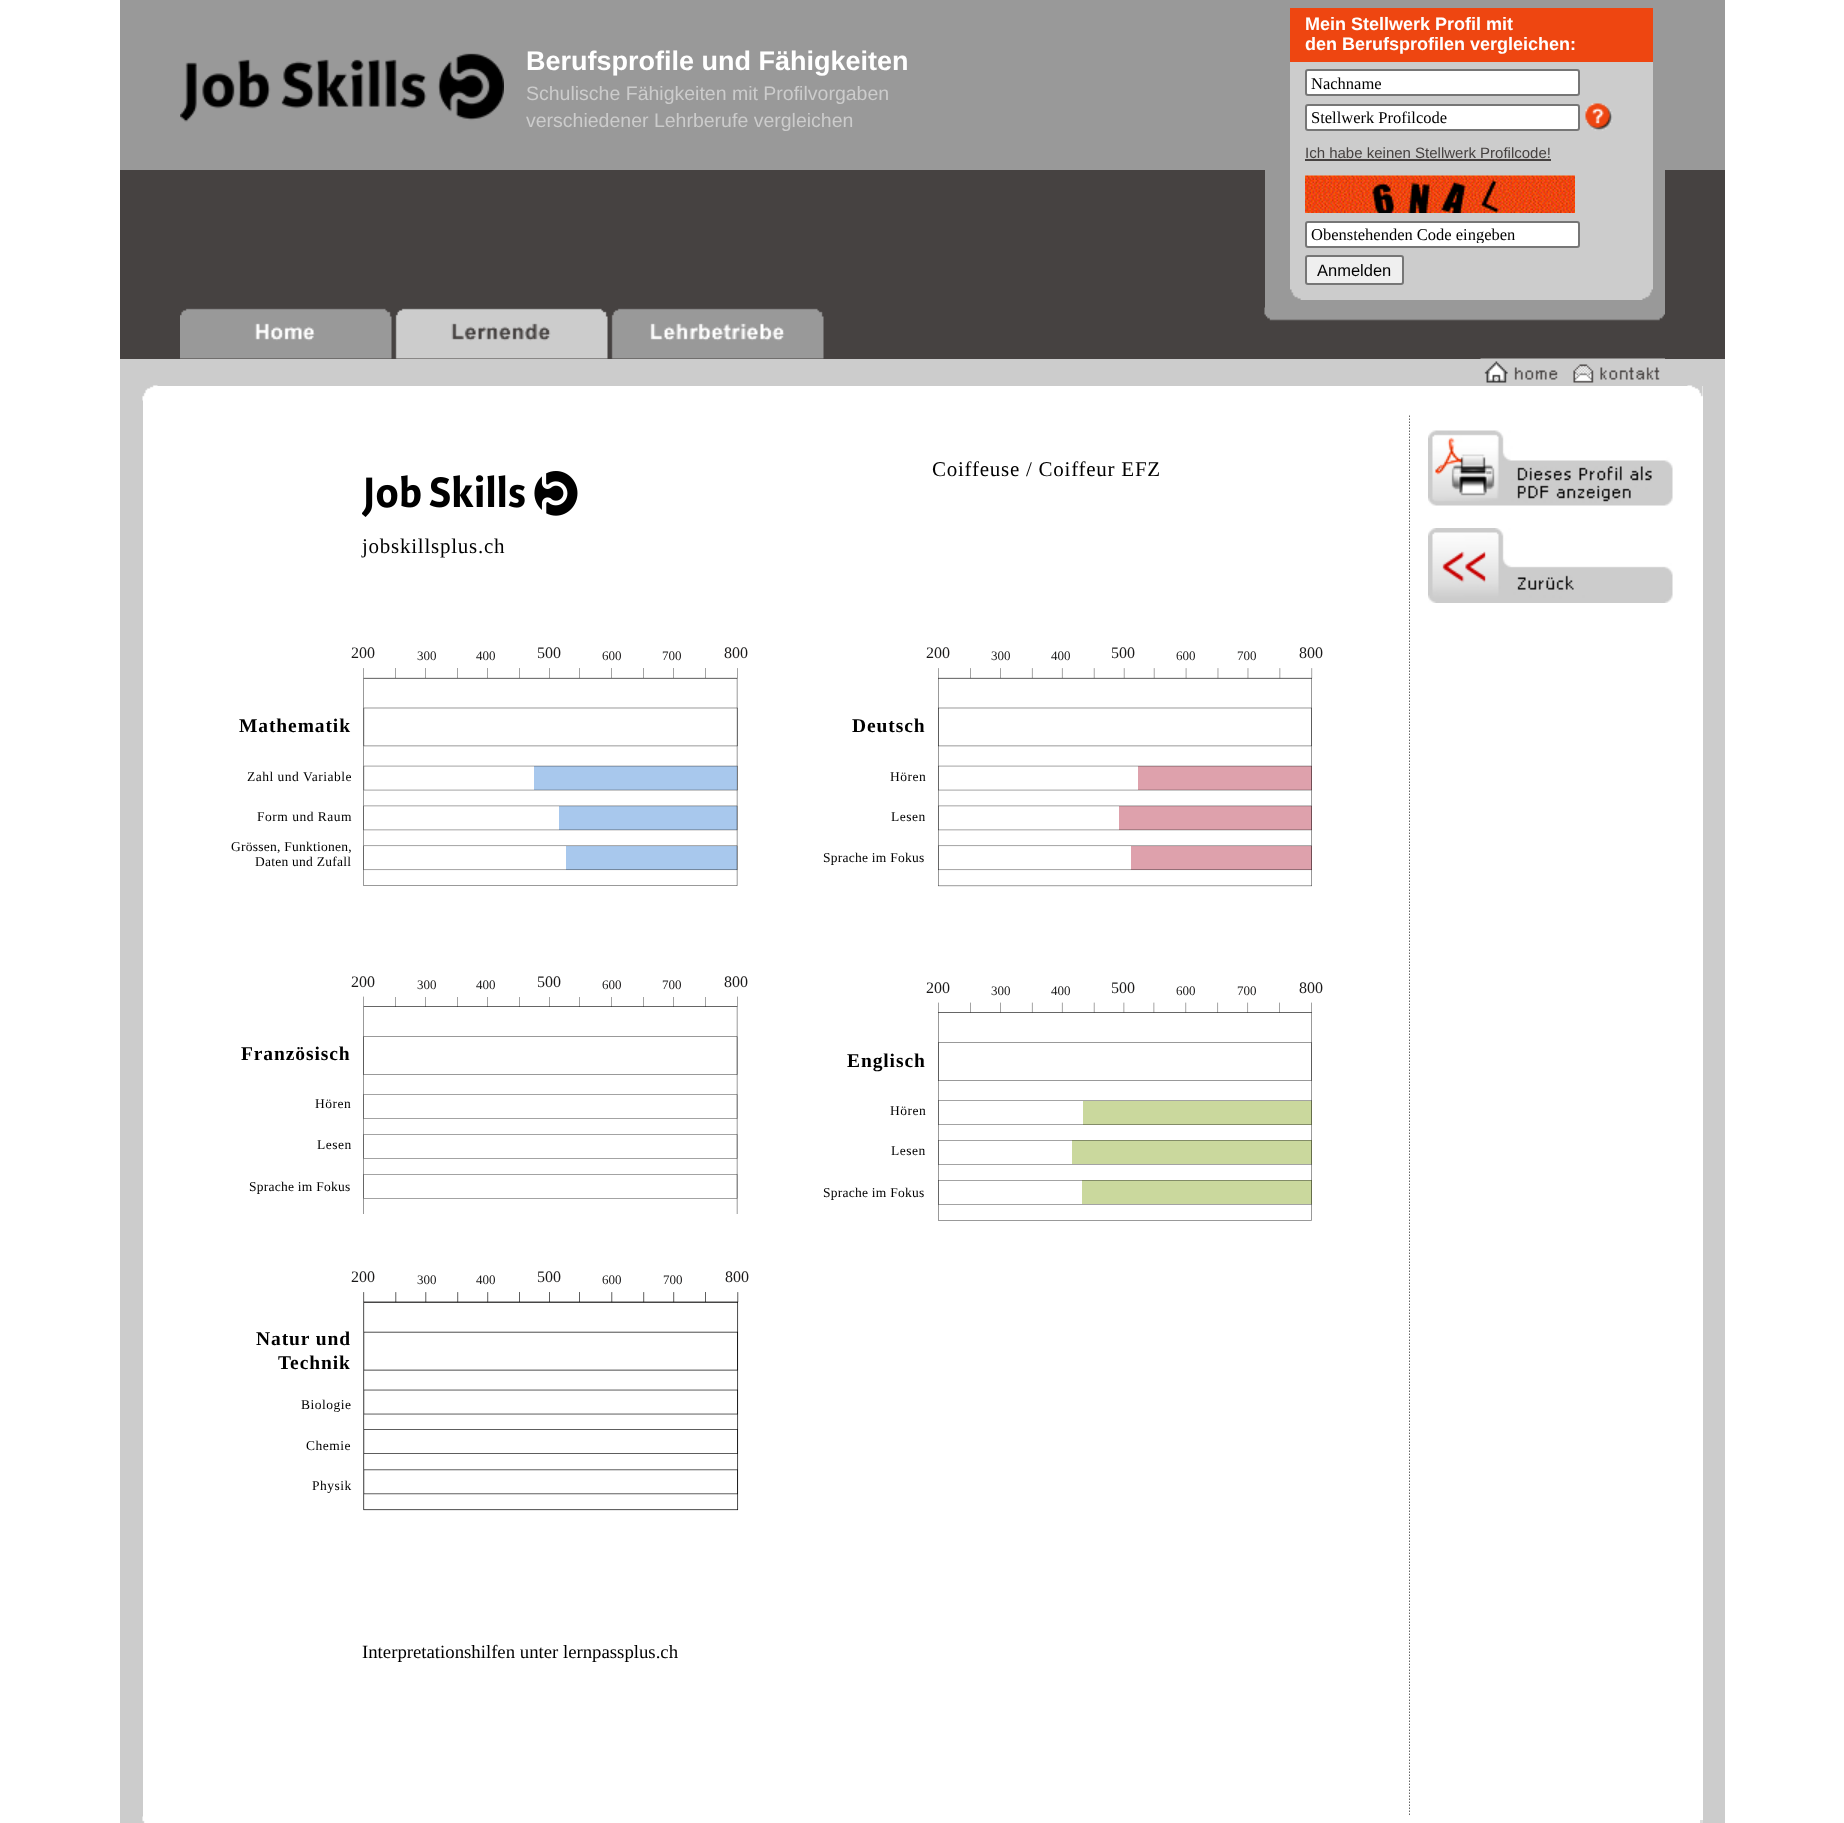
async function draw(canvas) {
  canvas.width = 1844;
  canvas.height = 1823;
  const ctx = canvas.getContext('2d');
  ctx.miterLimit = 4;
  ctx.fontKerning = 'normal';
  function label(s, x, y, font, color) {
    ctx.font = font;
    ctx.fillStyle = color;
    ctx.fillText(s, x, y);
  }
  function rect(x, y, w, h, color) {
    ctx.fillStyle = color;
    ctx.fillRect(x, y, w, h);
  }
  async function image(src, x, y, w, h) {
    const img = new Image();
    img.src = src;
    await img.decode();
    ctx.drawImage(img, x, y, w, h);
  }
  let path;

  rect(0, 0, 1844, 1823, '#fff');
  rect(120, 0, 1605, 8, '#999');
  rect(120, 8, 1145, 162, '#999');
  rect(1265, 8, 400, 300, '#999');
  rect(1290, 8, 363, 7, '#ee4611');
  rect(1290, 15, 363, 39, '#ee4611');
  label('Mein Stellwerk Profil mit', 1305, 30, 'bold 18px Liberation Sans', '#fff');
  label('den Berufsprofilen vergleichen:', 1305, 50, 'bold 18px Liberation Sans', '#fff');
  rect(1290, 54, 363, 8, '#ee4611');
  rect(1290, 62, 363, 7, '#ccc');
  rect(1290, 69, 363, 35, '#ccc');
  ctx.fillStyle = '#fff';
  ctx.beginPath();
  ctx.roundRect(1306, 70, 273, 25, 2);
  ctx.fill();
  ctx.strokeStyle = '#767676';
  ctx.lineWidth = 2;
  ctx.stroke();
  label('Nachname', 1311, 89, '16.5px Liberation Serif', '#000');
  rect(1290, 104, 363, 27, '#ccc');
  await image('assets/img1.png', 1585, 103, 28, 28);
  ctx.fillStyle = '#fff';
  ctx.beginPath();
  ctx.roundRect(1306, 105, 273, 25, 2);
  ctx.fill();
  ctx.stroke();
  label('Stellwerk Profilcode', 1311, 123, '16.5px Liberation Serif', '#000');
  rect(1290, 131, 363, 45, '#ccc');
  label('Ich habe keinen Stellwerk Profilcode!', 1305, 158, '15px Liberation Sans', '#464241');
  rect(1305, 159, 246, 2, '#464241');
  rect(1290, 176, 363, 79, '#ccc');
  await image('assets/img2.png', 1305, 175, 270, 38);
  ctx.fillStyle = '#fff';
  ctx.beginPath();
  ctx.roundRect(1306, 222, 273, 25, 2);
  ctx.fill();
  ctx.stroke();
  ctx.save();
  ctx.beginPath();
  ctx.rect(1311, 225, 263, 18);
  ctx.clip();
  label('Obenstehenden Code eingeben', 1311, 240, '16.5px Liberation Serif', '#000');
  ctx.restore();
  rect(1290, 255, 363, 30, '#ccc');
  ctx.fillStyle = '#efefef';
  ctx.beginPath();
  ctx.roundRect(1306, 256, 97, 28, 2);
  ctx.fill();
  ctx.stroke();
  label('Anmelden', 1317, 276, '16.5px Liberation Sans', '#000');
  rect(1290, 285, 363, 15, '#ccc');
  await image('assets/img3.png', 1290, 289, 11, 11);
  await image('assets/img4.png', 1642, 289, 11, 11);
  rect(1665, 8, 60, 162, '#999');
  await image('assets/img5.png', 180, 53, 324, 69);
  label('Berufsprofile und Fähigkeiten', 526, 70, 'bold 27px Liberation Sans', '#fff');
  label('Schulische Fähigkeiten mit Profilvorgaben', 526, 100, '19.5px Liberation Sans', '#ccc');
  label('verschiedener Lehrberufe vergleichen', 526, 127, '19.5px Liberation Sans', '#ccc');
  rect(120, 170, 60, 189, '#464241');
  rect(180, 170, 1085, 189, '#464241');
  rect(1665, 170, 60, 189, '#464241');
  await image('assets/img6.png', 180, 308, 212, 51);
  await image('assets/img7.png', 395, 308, 213, 51);
  await image('assets/img8.png', 611, 308, 213, 51);
  rect(1265, 321, 400, 38, '#464241');
  await image('assets/img9.png', 1264, 307, 401, 14);
  rect(120, 359, 1605, 27, '#ccc');
  await image('assets/img10.png', 1480, 358, 80, 25);
  await image('assets/img11.png', 1560, 358, 105, 25);
  rect(120, 386, 23, 1437, '#ccc');
  await image('assets/img12.png', 142, 385, 16, 16);
  await image('assets/img13.png', 1687, 385, 16, 12);
  rect(1703, 386, 22, 1437, '#ccc');
  path = new Path2D('M1409 415.5V1816.5');
  ctx.strokeStyle = '#333';
  ctx.lineWidth = 1.5;
  ctx.setLineDash([1.5, 1.5]);
  ctx.stroke(path);
  rect(1408, 415, 1, 1400, '#fff');
  ctx.letterSpacing = '0.75px';
  label('Coiffeuse / Coiffeur EFZ', 932, 476, '21px Liberation Serif', '#000');
  await image('assets/img14.png', 362, 471, 216, 46);
  label('jobskillsplus.ch', 362, 553, '21px Liberation Serif', '#000');
  ctx.letterSpacing = '0px';
  label('200', 351, 658, '16px Liberation Serif', '#1a1919');
  label('300', 417, 660, '13px Liberation Serif', '#1a1919');
  label('400', 476, 660, '13px Liberation Serif', '#1a1919');
  label('500', 537, 658, '16px Liberation Serif', '#1a1919');
  label('600', 602, 660, '13px Liberation Serif', '#1a1919');
  label('700', 662, 660, '13px Liberation Serif', '#1a1919');
  label('800', 724, 658, '16px Liberation Serif', '#1a1919');
  await image('assets/img15.png', 363, 668, 375, 218);
  ctx.letterSpacing = '0.9px';
  label('Mathematik', 239, 732, 'bold 19.5px Liberation Serif', '#000');
  ctx.letterSpacing = '0.5px';
  label('Zahl und Variable', 247, 781, '13.5px Liberation Serif', '#000');
  label('Form und Raum', 257, 821, '13.5px Liberation Serif', '#000');
  ctx.letterSpacing = '0.25px';
  label('Grössen, Funktionen,', 231, 851, '13.5px Liberation Serif', '#000');
  label('Daten und Zufall', 255, 866, '13.5px Liberation Serif', '#000');
  ctx.letterSpacing = '0px';
  label('200', 351, 987, '16px Liberation Serif', '#1a1919');
  label('300', 417, 989, '13px Liberation Serif', '#1a1919');
  label('400', 476, 989, '13px Liberation Serif', '#1a1919');
  label('500', 537, 987, '16px Liberation Serif', '#1a1919');
  label('600', 602, 989, '13px Liberation Serif', '#1a1919');
  label('700', 662, 989, '13px Liberation Serif', '#1a1919');
  label('800', 724, 987, '16px Liberation Serif', '#1a1919');
  await image('assets/img16.png', 363, 996, 375, 218);
  ctx.letterSpacing = '0.9px';
  label('Französisch', 241, 1060, 'bold 19.5px Liberation Serif', '#000');
  ctx.letterSpacing = '0.5px';
  label('Hören', 315, 1108, '13.5px Liberation Serif', '#000');
  label('Lesen', 317, 1149, '13.5px Liberation Serif', '#000');
  ctx.letterSpacing = '0.25px';
  label('Sprache im Fokus', 249, 1191, '13.5px Liberation Serif', '#000');
  ctx.letterSpacing = '0px';
  label('200', 351, 1282, '16px Liberation Serif', '#1a1919');
  label('300', 417, 1284, '13px Liberation Serif', '#1a1919');
  label('400', 476, 1284, '13px Liberation Serif', '#1a1919');
  label('500', 537, 1282, '16px Liberation Serif', '#1a1919');
  label('600', 602, 1284, '13px Liberation Serif', '#1a1919');
  label('700', 663, 1284, '13px Liberation Serif', '#1a1919');
  label('800', 725, 1282, '16px Liberation Serif', '#1a1919');
  await image('assets/img17.png', 363, 1292, 376, 219);
  ctx.letterSpacing = '0.9px';
  label('Natur und', 256, 1345, 'bold 19.5px Liberation Serif', '#000');
  label('Technik', 278, 1369, 'bold 19.5px Liberation Serif', '#000');
  ctx.letterSpacing = '0.5px';
  label('Biologie', 301, 1409, '13.5px Liberation Serif', '#000');
  label('Chemie', 306, 1450, '13.5px Liberation Serif', '#000');
  label('Physik', 312, 1490, '13.5px Liberation Serif', '#000');
  ctx.letterSpacing = '0px';
  label('200', 926, 658, '16px Liberation Serif', '#1a1919');
  label('300', 991, 660, '13px Liberation Serif', '#1a1919');
  label('400', 1051, 660, '13px Liberation Serif', '#1a1919');
  label('500', 1111, 658, '16px Liberation Serif', '#1a1919');
  label('600', 1176, 660, '13px Liberation Serif', '#1a1919');
  label('700', 1237, 660, '13px Liberation Serif', '#1a1919');
  label('800', 1299, 658, '16px Liberation Serif', '#1a1919');
  await image('assets/img18.png', 938, 668, 375, 219);
  ctx.letterSpacing = '0.9px';
  label('Deutsch', 852, 732, 'bold 19.5px Liberation Serif', '#000');
  ctx.letterSpacing = '0.5px';
  label('Hören', 890, 781, '13.5px Liberation Serif', '#000');
  label('Lesen', 891, 821, '13.5px Liberation Serif', '#000');
  ctx.letterSpacing = '0.25px';
  label('Sprache im Fokus', 823, 862, '13.5px Liberation Serif', '#000');
  ctx.letterSpacing = '0px';
  label('200', 926, 993, '16px Liberation Serif', '#1a1919');
  label('300', 991, 995, '13px Liberation Serif', '#1a1919');
  label('400', 1051, 995, '13px Liberation Serif', '#1a1919');
  label('500', 1111, 993, '16px Liberation Serif', '#1a1919');
  label('600', 1176, 995, '13px Liberation Serif', '#1a1919');
  label('700', 1237, 995, '13px Liberation Serif', '#1a1919');
  label('800', 1299, 993, '16px Liberation Serif', '#1a1919');
  await image('assets/img19.png', 938, 1002, 374, 219);
  ctx.letterSpacing = '0.9px';
  label('Englisch', 847, 1067, 'bold 19.5px Liberation Serif', '#000');
  ctx.letterSpacing = '0.5px';
  label('Hören', 890, 1115, '13.5px Liberation Serif', '#000');
  label('Lesen', 891, 1155, '13.5px Liberation Serif', '#000');
  ctx.letterSpacing = '0.25px';
  label('Sprache im Fokus', 823, 1197, '13.5px Liberation Serif', '#000');
  ctx.letterSpacing = '0px';
  label('Interpretationshilfen unter lernpassplus.ch', 362, 1658, '18.75px Liberation Serif', '#000');
  await image('assets/img20.png', 1428, 430, 245, 76);
  await image('assets/img21.png', 1428, 528, 245, 75);
  await image('assets/img22.png', 142, 1816, 3, 7);
  rect(1700, 1820, 3, 3, '#ddd');
}

draw(document.querySelector('canvas'));
